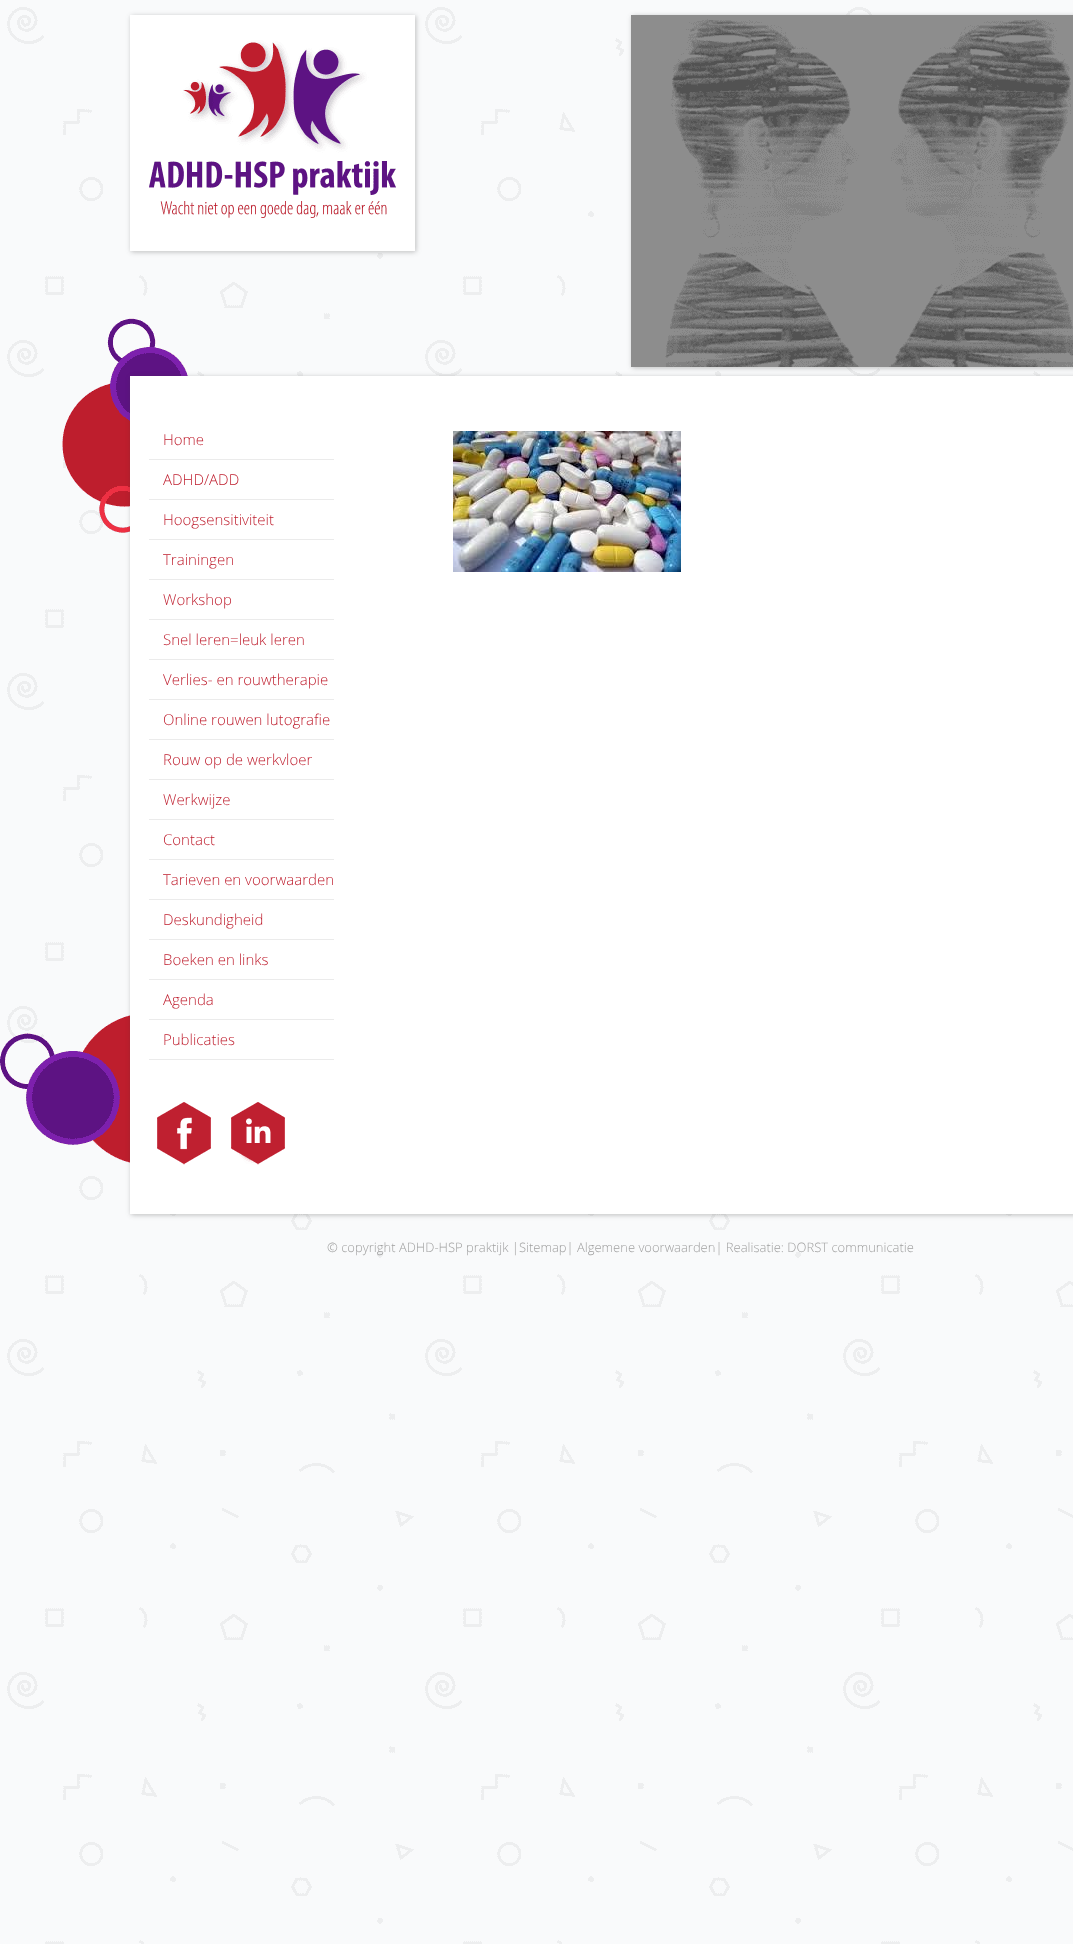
async function draw(canvas) {
  canvas.width = 1073;
  canvas.height = 1944;
  const ctx = canvas.getContext('2d');
  ctx.miterLimit = 4;
  ctx.fontKerning = 'normal';
  function label(s, x, y, font, color) {
    ctx.font = font;
    ctx.fillStyle = color;
    ctx.fillText(s, x, y);
  }
  function rect(x, y, w, h, color) {
    ctx.fillStyle = color;
    ctx.fillRect(x, y, w, h);
  }
  async function image(src, x, y, w, h) {
    const img = new Image();
    img.src = src;
    await img.decode();
    ctx.drawImage(img, x, y, w, h);
  }

  rect(0, 0, 1073, 1944, '#f9fafb');
  await image('assets/img1.png', 7, 7, 1066, 1937);
  await image('assets/img2.png', 0, 318, 188, 845);
  ctx.fillStyle = '#3232324d';
  ctx.filter = 'blur(2.5px)';
  ctx.beginPath();
  ctx.rect(131, 16, 285, 236);
  ctx.fill();
  ctx.filter = 'none';
  await image('assets/img3.png', 130, 15, 285, 236);
  ctx.filter = 'blur(2.5px)';
  ctx.beginPath();
  ctx.rect(131, 377, 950, 838);
  ctx.fill();
  ctx.filter = 'none';
  rect(130, 376, 943, 838, '#fff');
  ctx.fillStyle = '#3232324d';
  ctx.filter = 'blur(2.5px)';
  ctx.beginPath();
  ctx.rect(632, 16, 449, 352);
  ctx.fill();
  ctx.filter = 'none';
  await image('assets/img4.png', 631, 15, 442, 352);
  rect(149, 459, 185, 1, '#ebebeb');
  label('Home', 163, 445, '300 15px Open Sans', '#bf1e2e');
  rect(149, 499, 185, 1, '#ebebeb');
  label('ADHD/ADD', 163, 485, '300 15px Open Sans', '#bf1e2e');
  rect(149, 539, 185, 1, '#ebebeb');
  label('Hoogsensitiviteit', 163, 525, '300 15px Open Sans', '#bf1e2e');
  rect(149, 579, 185, 1, '#ebebeb');
  label('Trainingen', 163, 565, '300 15px Open Sans', '#bf1e2e');
  rect(149, 619, 185, 1, '#ebebeb');
  label('Workshop', 163, 605, '300 15px Open Sans', '#bf1e2e');
  rect(149, 659, 185, 1, '#ebebeb');
  label('Snel leren=leuk leren', 163, 645, '300 15px Open Sans', '#bf1e2e');
  rect(149, 699, 185, 1, '#ebebeb');
  label('Verlies- en rouwtherapie', 163, 685, '300 15px Open Sans', '#bf1e2e');
  rect(149, 739, 185, 1, '#ebebeb');
  label('Online rouwen lutografie', 163, 725, '300 15px Open Sans', '#bf1e2e');
  rect(149, 779, 185, 1, '#ebebeb');
  label('Rouw op de werkvloer', 163, 765, '300 15px Open Sans', '#bf1e2e');
  rect(149, 819, 185, 1, '#ebebeb');
  label('Werkwijze', 163, 805, '300 15px Open Sans', '#bf1e2e');
  rect(149, 859, 185, 1, '#ebebeb');
  label('Contact', 163, 845, '300 15px Open Sans', '#bf1e2e');
  rect(149, 899, 185, 1, '#ebebeb');
  label('Tarieven en voorwaarden', 163, 885, '300 15px Open Sans', '#bf1e2e');
  rect(149, 939, 185, 1, '#ebebeb');
  label('Deskundigheid', 163, 925, '300 15px Open Sans', '#bf1e2e');
  rect(149, 979, 185, 1, '#ebebeb');
  label('Boeken en links', 163, 965, '300 15px Open Sans', '#bf1e2e');
  rect(149, 1019, 185, 1, '#ebebeb');
  label('Agenda', 163, 1005, '300 15px Open Sans', '#bf1e2e');
  rect(149, 1059, 185, 1, '#ebebeb');
  label('Publicaties', 163, 1045, '300 15px Open Sans', '#bf1e2e');
  await image('assets/img5.png', 157, 1102, 54, 63);
  await image('assets/img6.png', 231, 1102, 54, 63);
  await image('assets/img7.png', 453, 431, 228, 141);
  label('© copyright ADHD-HSP praktijk |Sitemap| Algemene voorwaarden| Realisatie: DORST communicatie', 327, 1252, '300 13px Open Sans', '#a0a0a0');
}

draw(document.querySelector('canvas'));
